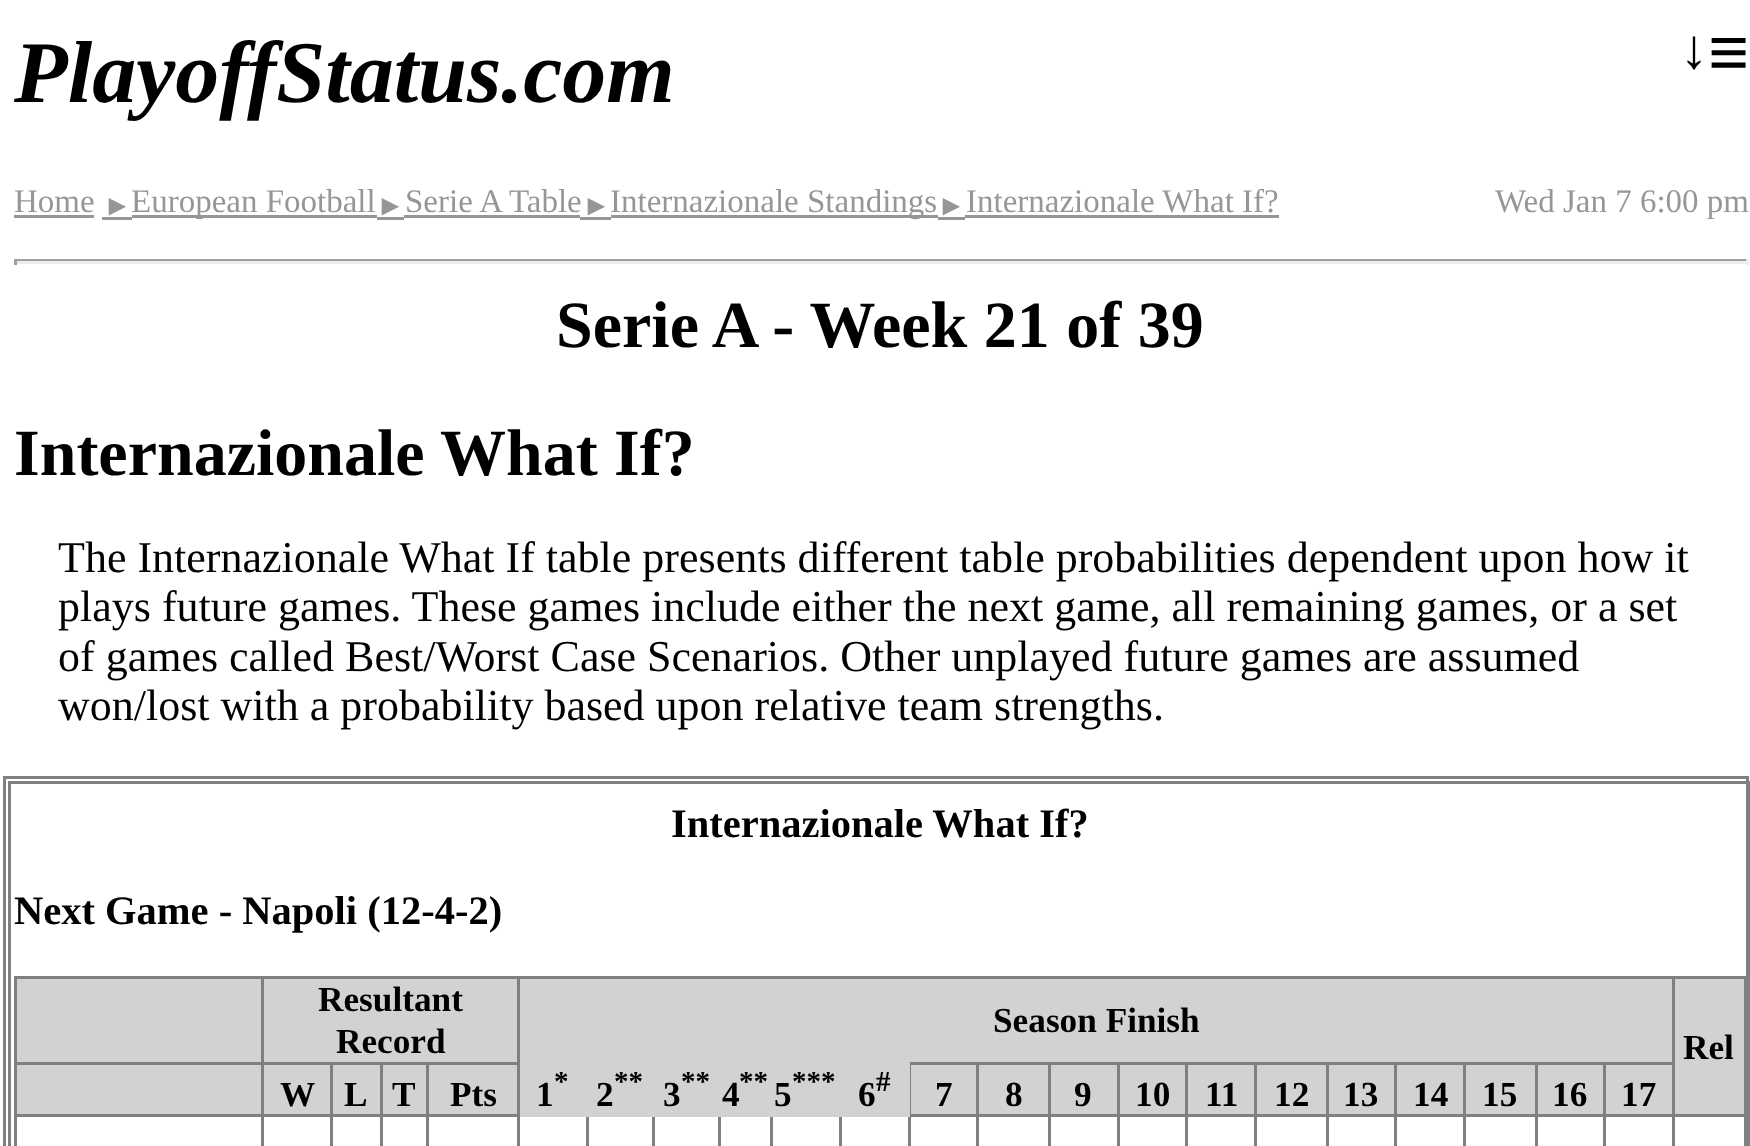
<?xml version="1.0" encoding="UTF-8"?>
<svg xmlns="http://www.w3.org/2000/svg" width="1750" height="1146">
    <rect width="100%" height="100%" fill="#FFFFFF"/>
    <text x="14" y="102" font-family="Liberation Serif" font-size="88" font-weight="700" font-style="italic" fill="#000000">PlayoffStatus.com</text>
    <text x="1680" y="68" font-family="Liberation Serif" font-size="56" font-weight="700" fill="#000000">↓</text>
    <text x="1708" y="77" font-family="Liberation Serif" font-size="73" font-weight="700" fill="#000000">≡</text>
    <text x="14" y="212" font-family="Liberation Serif" font-size="33" fill="#969696">Home</text>
    <rect x="14" y="215" width="80" height="3" fill="#969696"/>
    <text x="103" y="215" font-family="Liberation Serif" font-size="29" fill="#969696">►</text>
    <rect x="102" y="217" width="30" height="3" fill="#969696"/>
    <rect x="132" y="215" width="245" height="3" fill="#969696"/>
    <text x="131" y="212" font-family="Liberation Serif" font-size="33" fill="#969696">European Football</text>
    <text x="376" y="215" font-family="Liberation Serif" font-size="29" fill="#969696">►</text>
    <rect x="377" y="217" width="27" height="3" fill="#969696"/>
    <rect x="404" y="215" width="176" height="3" fill="#969696"/>
    <text x="405" y="212" font-family="Liberation Serif" font-size="33" fill="#969696">Serie A Table</text>
    <text x="582" y="215" font-family="Liberation Serif" font-size="29" fill="#969696">►</text>
    <rect x="580" y="217" width="31" height="3" fill="#969696"/>
    <rect x="611" y="215" width="327" height="3" fill="#969696"/>
    <text x="610" y="212" font-family="Liberation Serif" font-size="33" fill="#969696">Internazionale Standings</text>
    <text x="937" y="215" font-family="Liberation Serif" font-size="29" fill="#969696">►</text>
    <rect x="938" y="217" width="27" height="3" fill="#969696"/>
    <rect x="965" y="215" width="314" height="3" fill="#969696"/>
    <text x="966" y="212" font-family="Liberation Serif" font-size="33" fill="#969696">Internazionale What If?</text>
    <text x="1495" y="212" font-family="Liberation Serif" font-size="33" fill="#969696">Wed Jan 7 6:00 pm</text>
    <rect x="14" y="259" width="1735" height="2" fill="#9F9F9F"/>
    <rect x="1746" y="259" width="3" height="6" fill="#EEEEEE"/>
    <rect x="14" y="261" width="1735" height="3" fill="#EEEEEE"/>
    <rect x="14" y="259" width="3" height="6" fill="#9F9F9F"/>
    <text x="556" y="347" font-family="Liberation Serif" font-size="66" font-weight="700" fill="#000000">Serie A - Week 21 of 39</text>
    <text x="14" y="475" font-family="Liberation Serif" font-size="66" font-weight="700" fill="#000000">Internazionale What If?</text>
    <text font-family="Liberation Serif" font-size="44" fill="#000000">
        <tspan x="58" y="572">The Internazionale What If table presents different table probabilities dependent upon how it</tspan>
        <tspan x="58" y="621">plays future games. These games include either the next game, all remaining games, or a set</tspan>
        <tspan x="58" y="671">of games called Best/Worst Case Scenarios. Other unplayed future games are assumed</tspan>
        <tspan x="58" y="720">won/lost with a probability based upon relative team strengths.</tspan>
    </text>
    <rect x="4.5" y="777.5" width="1743" height="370" fill="none" stroke="#808080" stroke-width="3"/>
    <rect x="9.5" y="782.5" width="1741" height="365" fill="none" stroke="#808080" stroke-width="3"/>
    <text x="671" y="837" font-family="Liberation Serif" font-size="40.5" font-weight="700" fill="#000000">Internazionale What If?</text>
    <text x="14" y="924" font-family="Liberation Serif" font-size="40.5" font-weight="700" fill="#000000">Next Game - Napoli (12‑4‑2)</text>
    <rect x="14" y="976" width="1732" height="3" fill="#808080"/>
    <rect x="1744" y="976" width="2" height="170" fill="#808080"/>
    <rect x="14" y="976" width="3" height="170" fill="#808080"/>
    <rect x="17" y="979" width="244" height="83" fill="#D2D2D2"/>
    <rect x="264" y="979" width="253" height="83" fill="#D2D2D2"/>
    <rect x="517" y="1114" width="3" height="32" fill="#808080"/>
    <rect x="426" y="1114" width="94" height="3" fill="#808080"/>
    <rect x="517" y="1062" width="3" height="55" fill="#808080"/>
    <rect x="426" y="1062" width="94" height="3" fill="#808080"/>
    <rect x="426" y="1114" width="3" height="32" fill="#808080"/>
    <rect x="380" y="1114" width="49" height="3" fill="#808080"/>
    <rect x="426" y="1062" width="3" height="55" fill="#808080"/>
    <rect x="380" y="1062" width="49" height="3" fill="#808080"/>
    <rect x="380" y="1114" width="3" height="32" fill="#808080"/>
    <rect x="330" y="1114" width="52" height="3" fill="#808080"/>
    <rect x="380" y="1062" width="3" height="55" fill="#808080"/>
    <rect x="330" y="1062" width="52" height="3" fill="#808080"/>
    <rect x="330" y="1114" width="3" height="32" fill="#808080"/>
    <rect x="261" y="1114" width="72" height="3" fill="#808080"/>
    <rect x="330" y="1062" width="3" height="55" fill="#808080"/>
    <rect x="261" y="1062" width="72" height="3" fill="#808080"/>
    <rect x="261" y="1114" width="3" height="32" fill="#808080"/>
    <rect x="14" y="1114" width="250" height="3" fill="#808080"/>
    <rect x="261" y="1062" width="3" height="55" fill="#808080"/>
    <rect x="14" y="1062" width="250" height="3" fill="#808080"/>
    <rect x="261" y="976" width="3" height="88" fill="#808080"/>
    <text x="318" y="1011" font-family="Liberation Serif" font-size="35.25" font-weight="700" fill="#000000">Resultant</text>
    <text x="336" y="1053" font-family="Liberation Serif" font-size="35.25" font-weight="700" fill="#000000">Record</text>
    <rect x="520" y="979" width="1152" height="83" fill="#D2D2D2"/>
    <rect x="517" y="976" width="3" height="88" fill="#808080"/>
    <text x="993" y="1032" font-family="Liberation Serif" font-size="35.25" font-weight="700" fill="#000000">Season Finish</text>
    <rect x="1675" y="979" width="69" height="135" fill="#D2D2D2"/>
    <rect x="1603" y="1062" width="72" height="3" fill="#808080"/>
    <rect x="1672" y="1114" width="74" height="3" fill="#808080"/>
    <rect x="1672" y="1114" width="3" height="32" fill="#808080"/>
    <rect x="1603" y="1114" width="72" height="3" fill="#808080"/>
    <rect x="1672" y="976" width="3" height="141" fill="#808080"/>
    <text x="1683" y="1059" font-family="Liberation Serif" font-size="35.25" font-weight="700" fill="#000000">Rel</text>
    <rect x="17" y="1065" width="244" height="49" fill="#D2D2D2"/>
    <rect x="264" y="1065" width="66" height="49" fill="#D2D2D2"/>
    <text x="280" y="1106" font-family="Liberation Serif" font-size="35.25" font-weight="700" fill="#000000">W</text>
    <rect x="333" y="1065" width="47" height="49" fill="#D2D2D2"/>
    <text x="344" y="1106" font-family="Liberation Serif" font-size="35.25" font-weight="700" fill="#000000">L</text>
    <rect x="383" y="1065" width="43" height="49" fill="#D2D2D2"/>
    <text x="392" y="1106" font-family="Liberation Serif" font-size="35.25" font-weight="700" fill="#000000">T</text>
    <rect x="429" y="1065" width="88" height="49" fill="#D2D2D2"/>
    <text x="450" y="1106" font-family="Liberation Serif" font-size="35.25" font-weight="700" fill="#000000">Pts</text>
    <rect x="1603" y="1114" width="3" height="32" fill="#808080"/>
    <rect x="1535" y="1114" width="71" height="3" fill="#808080"/>
    <rect x="1603" y="1062" width="3" height="55" fill="#808080"/>
    <rect x="1535" y="1062" width="71" height="3" fill="#808080"/>
    <rect x="1535" y="1114" width="3" height="32" fill="#808080"/>
    <rect x="1463" y="1114" width="74" height="3" fill="#808080"/>
    <rect x="1535" y="1062" width="3" height="55" fill="#808080"/>
    <rect x="1463" y="1062" width="74" height="3" fill="#808080"/>
    <rect x="1463" y="1114" width="3" height="32" fill="#808080"/>
    <rect x="1394" y="1114" width="72" height="3" fill="#808080"/>
    <rect x="1463" y="1062" width="3" height="55" fill="#808080"/>
    <rect x="1394" y="1062" width="72" height="3" fill="#808080"/>
    <rect x="1394" y="1114" width="3" height="32" fill="#808080"/>
    <rect x="1326" y="1114" width="71" height="3" fill="#808080"/>
    <rect x="1394" y="1062" width="3" height="55" fill="#808080"/>
    <rect x="1326" y="1062" width="71" height="3" fill="#808080"/>
    <rect x="1326" y="1114" width="3" height="32" fill="#808080"/>
    <rect x="1254" y="1114" width="74" height="3" fill="#808080"/>
    <rect x="1326" y="1062" width="3" height="55" fill="#808080"/>
    <rect x="1254" y="1062" width="74" height="3" fill="#808080"/>
    <rect x="1254" y="1114" width="3" height="32" fill="#808080"/>
    <rect x="1185" y="1114" width="72" height="3" fill="#808080"/>
    <rect x="1254" y="1062" width="3" height="55" fill="#808080"/>
    <rect x="1185" y="1062" width="72" height="3" fill="#808080"/>
    <rect x="1185" y="1114" width="3" height="32" fill="#808080"/>
    <rect x="1117" y="1114" width="71" height="3" fill="#808080"/>
    <rect x="1185" y="1062" width="3" height="55" fill="#808080"/>
    <rect x="1117" y="1062" width="71" height="3" fill="#808080"/>
    <rect x="1117" y="1114" width="3" height="32" fill="#808080"/>
    <rect x="1048" y="1114" width="71" height="3" fill="#808080"/>
    <rect x="1117" y="1062" width="3" height="55" fill="#808080"/>
    <rect x="1048" y="1062" width="71" height="3" fill="#808080"/>
    <rect x="1048" y="1114" width="3" height="32" fill="#808080"/>
    <rect x="976" y="1114" width="75" height="3" fill="#808080"/>
    <rect x="1048" y="1062" width="3" height="55" fill="#808080"/>
    <rect x="976" y="1062" width="75" height="3" fill="#808080"/>
    <rect x="976" y="1114" width="3" height="32" fill="#808080"/>
    <rect x="908" y="1114" width="71" height="3" fill="#808080"/>
    <rect x="976" y="1062" width="3" height="55" fill="#808080"/>
    <rect x="908" y="1062" width="71" height="3" fill="#808080"/>
    <rect x="586" y="1114" width="3" height="32" fill="#808080"/>
    <rect x="652" y="1114" width="3" height="32" fill="#808080"/>
    <rect x="718" y="1114" width="3" height="32" fill="#808080"/>
    <rect x="770" y="1114" width="3" height="32" fill="#808080"/>
    <rect x="839" y="1114" width="3" height="32" fill="#808080"/>
    <rect x="908" y="1114" width="3" height="32" fill="#808080"/>
    <rect x="520" y="1062" width="390" height="55" fill="#D2D2D2"/>
    <text x="554" y="1091" font-family="Liberation Serif" font-size="29" font-weight="700" fill="#000000">*</text>
    <text x="536" y="1106" font-family="Liberation Serif" font-size="35.25" font-weight="700" fill="#000000">1</text>
    <text x="614" y="1091" font-family="Liberation Serif" font-size="29" font-weight="700" fill="#000000">**</text>
    <text x="596" y="1106" font-family="Liberation Serif" font-size="35.25" font-weight="700" fill="#000000">2</text>
    <text x="681" y="1091" font-family="Liberation Serif" font-size="29" font-weight="700" fill="#000000">**</text>
    <text x="663" y="1106" font-family="Liberation Serif" font-size="35.25" font-weight="700" fill="#000000">3</text>
    <text x="739" y="1091" font-family="Liberation Serif" font-size="29" font-weight="700" fill="#000000">**</text>
    <text x="722" y="1106" font-family="Liberation Serif" font-size="35.25" font-weight="700" fill="#000000">4</text>
    <text x="792" y="1091" font-family="Liberation Serif" font-size="29" font-weight="700" fill="#000000">***</text>
    <text x="774" y="1106" font-family="Liberation Serif" font-size="35.25" font-weight="700" fill="#000000">5</text>
    <text x="858" y="1106" font-family="Liberation Serif" font-size="35.25" font-weight="700" fill="#000000">6</text>
    <text x="876" y="1091" font-family="Liberation Serif" font-size="29" font-weight="700" fill="#000000">#</text>
    <rect x="911" y="1065" width="65" height="49" fill="#D2D2D2"/>
    <rect x="910" y="1062" width="1" height="55" fill="#808080"/>
    <text x="935" y="1106" font-family="Liberation Serif" font-size="35.25" font-weight="700" fill="#000000">7</text>
    <rect x="979" y="1065" width="69" height="49" fill="#D2D2D2"/>
    <text x="1005" y="1106" font-family="Liberation Serif" font-size="35.25" font-weight="700" fill="#000000">8</text>
    <rect x="1051" y="1065" width="66" height="49" fill="#D2D2D2"/>
    <text x="1074" y="1106" font-family="Liberation Serif" font-size="35.25" font-weight="700" fill="#000000">9</text>
    <rect x="1120" y="1065" width="65" height="49" fill="#D2D2D2"/>
    <text x="1135" y="1106" font-family="Liberation Serif" font-size="35.25" font-weight="700" fill="#000000">10</text>
    <rect x="1188" y="1065" width="66" height="49" fill="#D2D2D2"/>
    <text x="1205" y="1106" font-family="Liberation Serif" font-size="35.25" font-weight="700" fill="#000000">11</text>
    <rect x="1257" y="1065" width="69" height="49" fill="#D2D2D2"/>
    <text x="1274" y="1106" font-family="Liberation Serif" font-size="35.25" font-weight="700" fill="#000000">12</text>
    <rect x="1329" y="1065" width="65" height="49" fill="#D2D2D2"/>
    <text x="1343" y="1106" font-family="Liberation Serif" font-size="35.25" font-weight="700" fill="#000000">13</text>
    <rect x="1397" y="1065" width="66" height="49" fill="#D2D2D2"/>
    <text x="1413" y="1106" font-family="Liberation Serif" font-size="35.25" font-weight="700" fill="#000000">14</text>
    <rect x="1466" y="1065" width="69" height="49" fill="#D2D2D2"/>
    <text x="1482" y="1106" font-family="Liberation Serif" font-size="35.25" font-weight="700" fill="#000000">15</text>
    <rect x="1538" y="1065" width="65" height="49" fill="#D2D2D2"/>
    <text x="1552" y="1106" font-family="Liberation Serif" font-size="35.25" font-weight="700" fill="#000000">16</text>
    <rect x="1606" y="1065" width="66" height="49" fill="#D2D2D2"/>
    <text x="1621" y="1106" font-family="Liberation Serif" font-size="35.25" font-weight="700" fill="#000000">17</text>
</svg>
